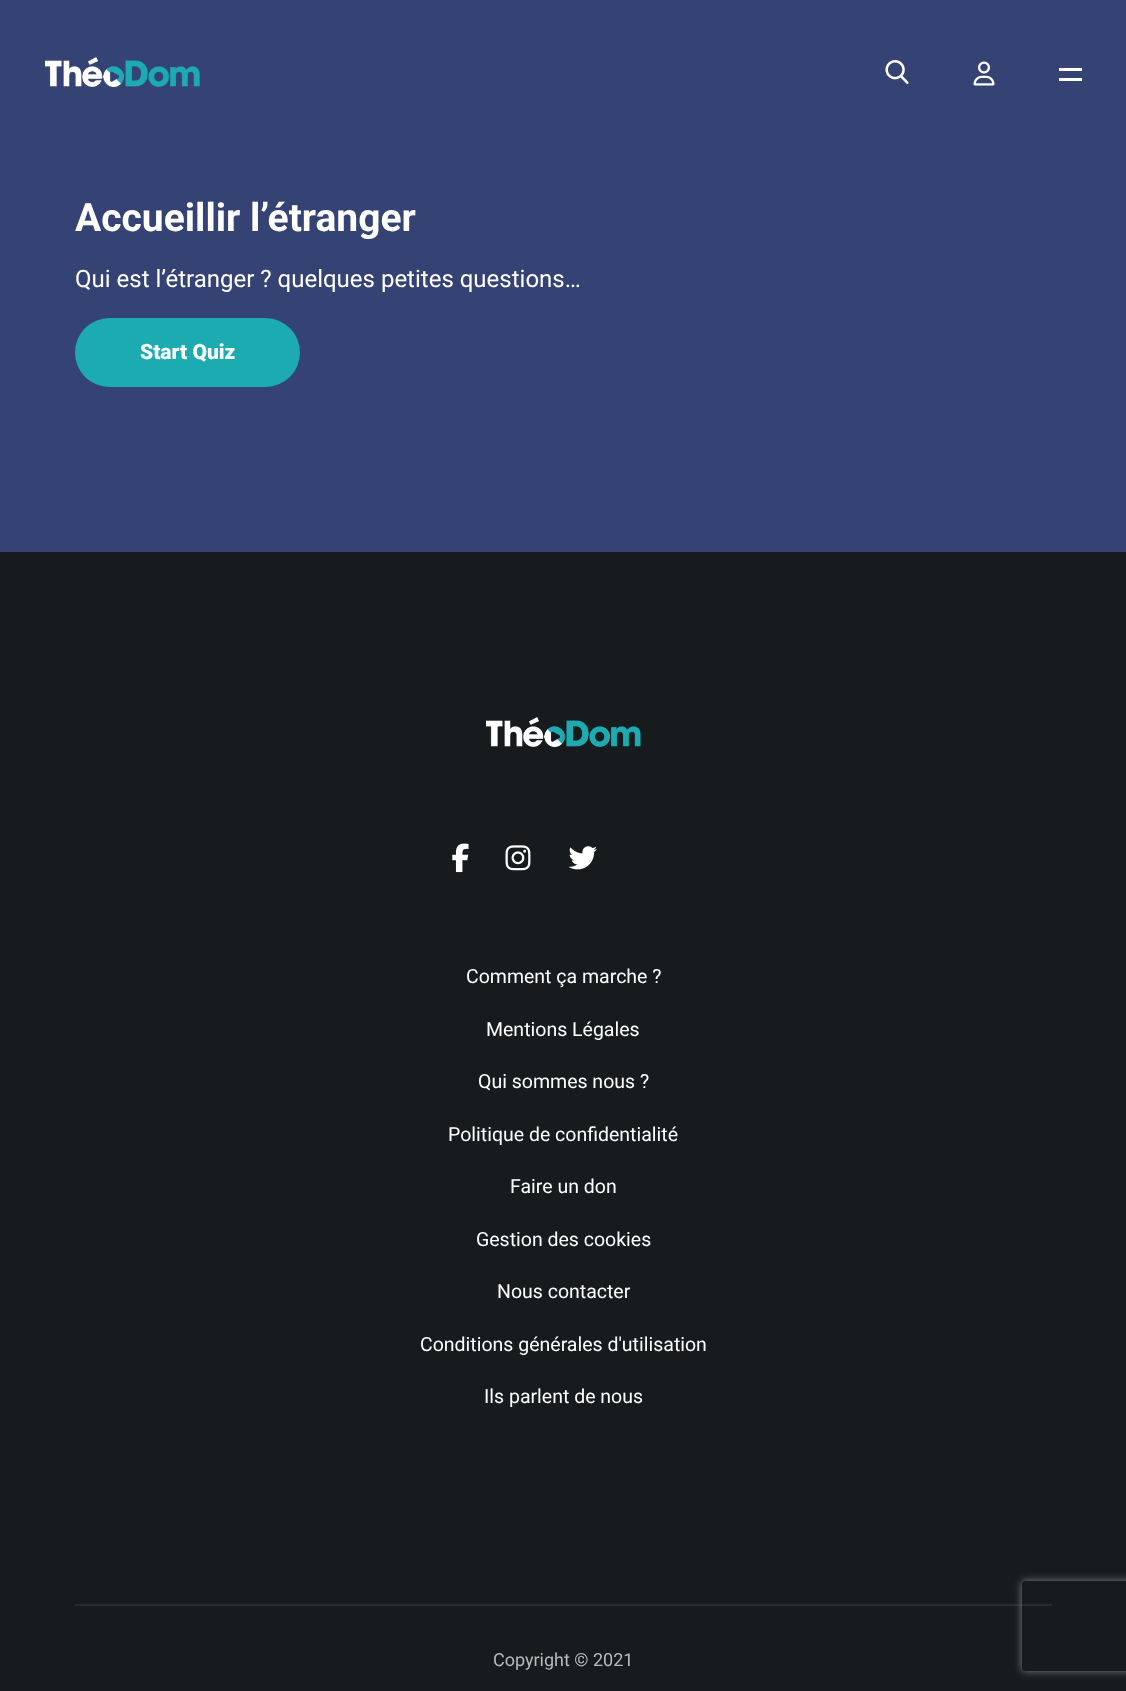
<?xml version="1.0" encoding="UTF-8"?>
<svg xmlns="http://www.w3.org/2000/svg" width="1126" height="1691">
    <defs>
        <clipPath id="clip1"><path d="M 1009 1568 H 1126 V 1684 H 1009 Z M 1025 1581 H 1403 C 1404.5 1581 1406 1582.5 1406 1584 V 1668 C 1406 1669.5 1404.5 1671 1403 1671 H 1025 C 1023.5 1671 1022 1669.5 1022 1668 V 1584 C 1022 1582.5 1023.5 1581 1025 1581 Z" clip-rule="evenodd"/></clipPath>
        <filter id="blur1" x="-50%" y="-200%" width="200%" height="500%"><feGaussianBlur stdDeviation="4"/></filter>
    </defs>
    <rect width="100%" height="100%" fill="#354374"/>
    <image x="45" y="57" width="155" height="30" href="img_01.png"/>
    <image x="885" y="60" width="24" height="24" href="img_02.png"/>
    <image x="973" y="61" width="22" height="25" href="img_03.png"/>
    <rect x="1059" y="68" width="23" height="3" fill="#FFFFFF"/>
    <rect x="1059" y="78" width="23" height="3" fill="#FFFFFF"/>
    <text x="75" y="231" font-family="Roboto" font-size="39" font-weight="700" fill="#FFFFFF">Accueillir l’étranger</text>
    <text x="75" y="287" font-family="Roboto" font-size="24" fill="#FFFFFF">Qui est l’étranger ? quelques petites questions…</text>
    <rect x="75" y="318" width="225" height="69" rx="34.5" fill="#1DABB2"/>
    <text x="140" y="359" font-family="Roboto" font-size="21" font-weight="900" fill="#FFFFFF">Start Quiz</text>
    <rect x="0" y="552" width="1126" height="1139" fill="#171B1D"/>
    <image x="486" y="717" width="155" height="30" href="img_04.png"/>
    <image x="452" y="843" width="17" height="30" href="img_05.png"/>
    <image x="505" y="845" width="26" height="26" href="img_06.png"/>
    <image x="568" y="846" width="29" height="24" href="img_07.png"/>
    <text x="466" y="983" font-family="Roboto" font-size="19.5" fill="#FFFFFF">Comment ça marche ?</text>
    <text x="486" y="1036" font-family="Roboto" font-size="19.5" fill="#FFFFFF">Mentions Légales</text>
    <text x="478" y="1088" font-family="Roboto" font-size="19.5" fill="#FFFFFF">Qui sommes nous ?</text>
    <text x="448" y="1141" font-family="Roboto" font-size="19.5" fill="#FFFFFF">Politique de confidentialité</text>
    <text x="510" y="1193" font-family="Roboto" font-size="19.5" fill="#FFFFFF">Faire un don</text>
    <text x="476" y="1246" font-family="Roboto" font-size="19.5" fill="#FFFFFF">Gestion des cookies</text>
    <text x="497" y="1298" font-family="Roboto" font-size="19.5" fill="#FFFFFF">Nous contacter</text>
    <text x="420" y="1351" font-family="Roboto" font-size="19.5" fill="#FFFFFF">Conditions générales d'utilisation</text>
    <text x="484" y="1403" font-family="Roboto" font-size="19.5" fill="#FFFFFF">Ils parlent de nous</text>
    <rect x="75" y="1604" width="977" height="2" fill="#262D2F"/>
    <text x="493" y="1666" font-family="Roboto" font-size="18" fill="#B9BBBB">Copyright © 2021</text>
    <g clip-path="url(#clip1)">
        <rect x="1022" y="1581" width="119" height="90" rx="3" fill="#808080" filter="url(#blur1)"/>
    </g>
</svg>
